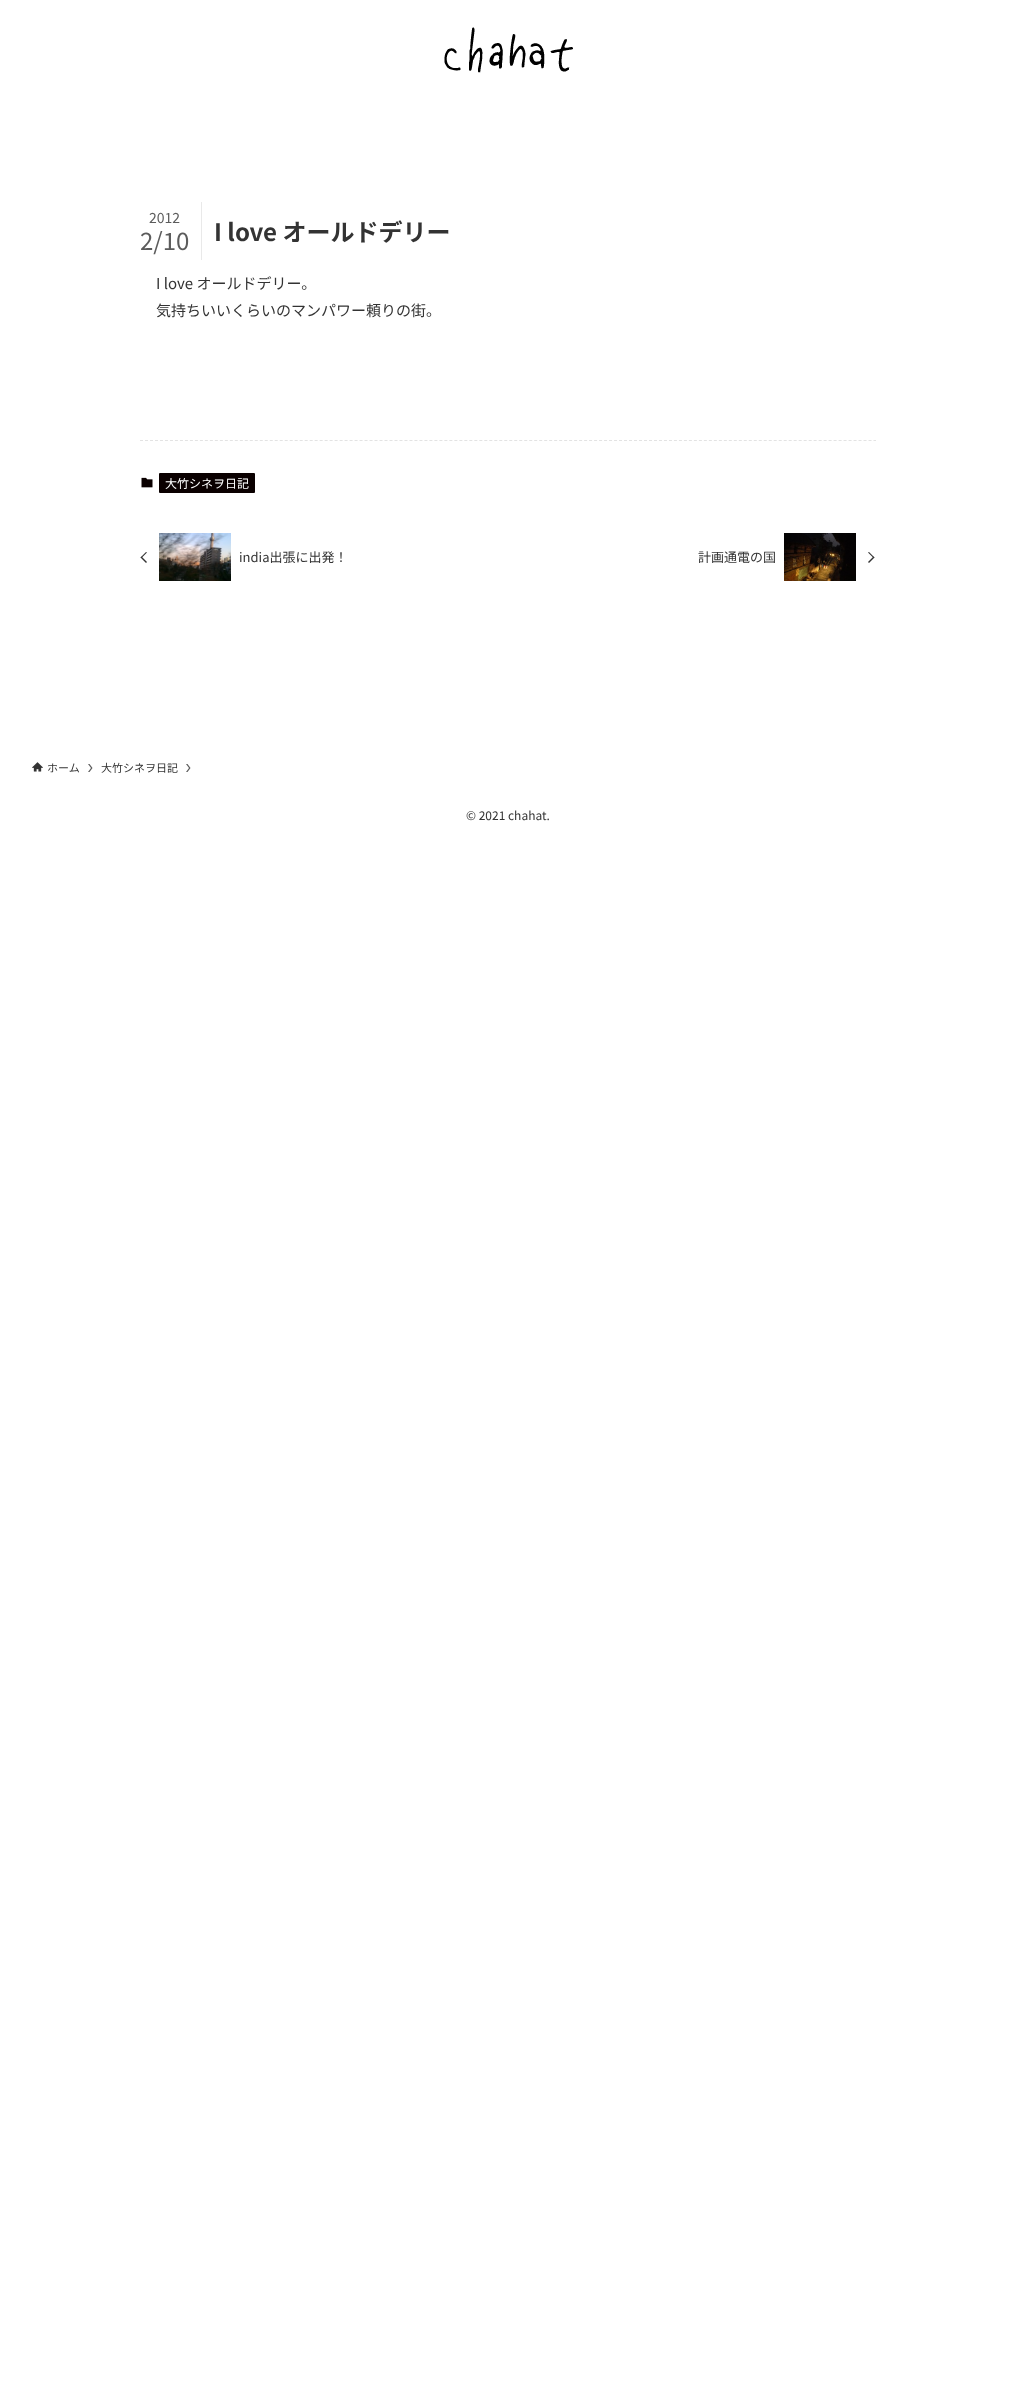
<?xml version="1.0" encoding="UTF-8"?>
<svg xmlns="http://www.w3.org/2000/svg" width="1015" height="2394">
    <rect width="100%" height="100%" fill="#FFFFFF"/>
    <image x="444" y="27" width="129" height="46" href="img_01.png"/>
    <rect x="201" y="202" width="1" height="58" fill="#E9E9E9"/>
    <text x="149" y="223" font-family="Noto Sans JP" font-size="14" fill="#5C5C5C">2012</text>
    <text x="140" y="250" font-family="Noto Sans JP" font-size="24" fill="#5C5C5C">2/10</text>
    <text x="214" y="241" font-family="Noto Sans JP" font-size="24" font-weight="700" fill="#333333">I love オールドデリー</text>
    <text font-family="Noto Sans JP" font-size="15" fill="#333333">
        <tspan x="156" y="289">I love オールドデリー。</tspan>
        <tspan x="156" y="316">気持ちいいくらいのマンパワー頼りの街。</tspan>
    </text>
    <path d="M 140 440.5 H 876" fill="none" stroke="#E3E3E3" stroke-dasharray="3 1.99"/>
    <image x="141" y="477" width="12" height="11" href="img_02.png"/>
    <rect x="159" y="473" width="96" height="20" rx="1" fill="#0A0000"/>
    <text x="165" y="488" font-family="Noto Sans JP" font-size="12" fill="#FFFFFF">大竹シネヲ日記</text>
    <path d="M 141.5 556.5 L 147 562 L 146 563 L 140.5 557.5 Z" fill="#333333"/>
    <path d="M 146 552 L 147 552.5 L 141.5 558 L 140.5 557.5 Z" fill="#333333"/>
    <image x="159" y="533" width="72" height="48" href="img_03.png"/>
    <text x="239" y="562" font-family="Noto Sans JP" font-size="13" fill="#333333">india出張に出発！</text>
    <text x="698" y="562" font-family="Noto Sans JP" font-size="13" fill="#333333">計画通電の国</text>
    <image x="784" y="533" width="72" height="48" href="img_04.png"/>
    <path d="M 868 552.5 L 869 552 L 874.5 557.5 L 873.5 558 Z" fill="#333333"/>
    <path d="M 868 562 L 873.5 556.5 L 874.5 557.5 L 869 563 Z" fill="#333333"/>
    <image x="32" y="762" width="11" height="10" href="img_05.png"/>
    <text x="47" y="772" font-family="Noto Sans JP" font-size="11" fill="#333333">ホーム</text>
    <path d="M 89.5 764 H 88 L 91 768 L 88 772 H 89.5 L 92.5 768 Z" fill="#5C5C5C"/>
    <text x="101" y="772" font-family="Noto Sans JP" font-size="11" fill="#333333">大竹シネヲ日記</text>
    <path d="M 187.5 764 H 186 L 189 768 L 186 772 H 187.5 L 190.5 768 Z" fill="#5C5C5C"/>
    <text x="466" y="820" font-family="Noto Sans JP" font-size="12" fill="#333333">© 2021 chahat.</text>
</svg>
